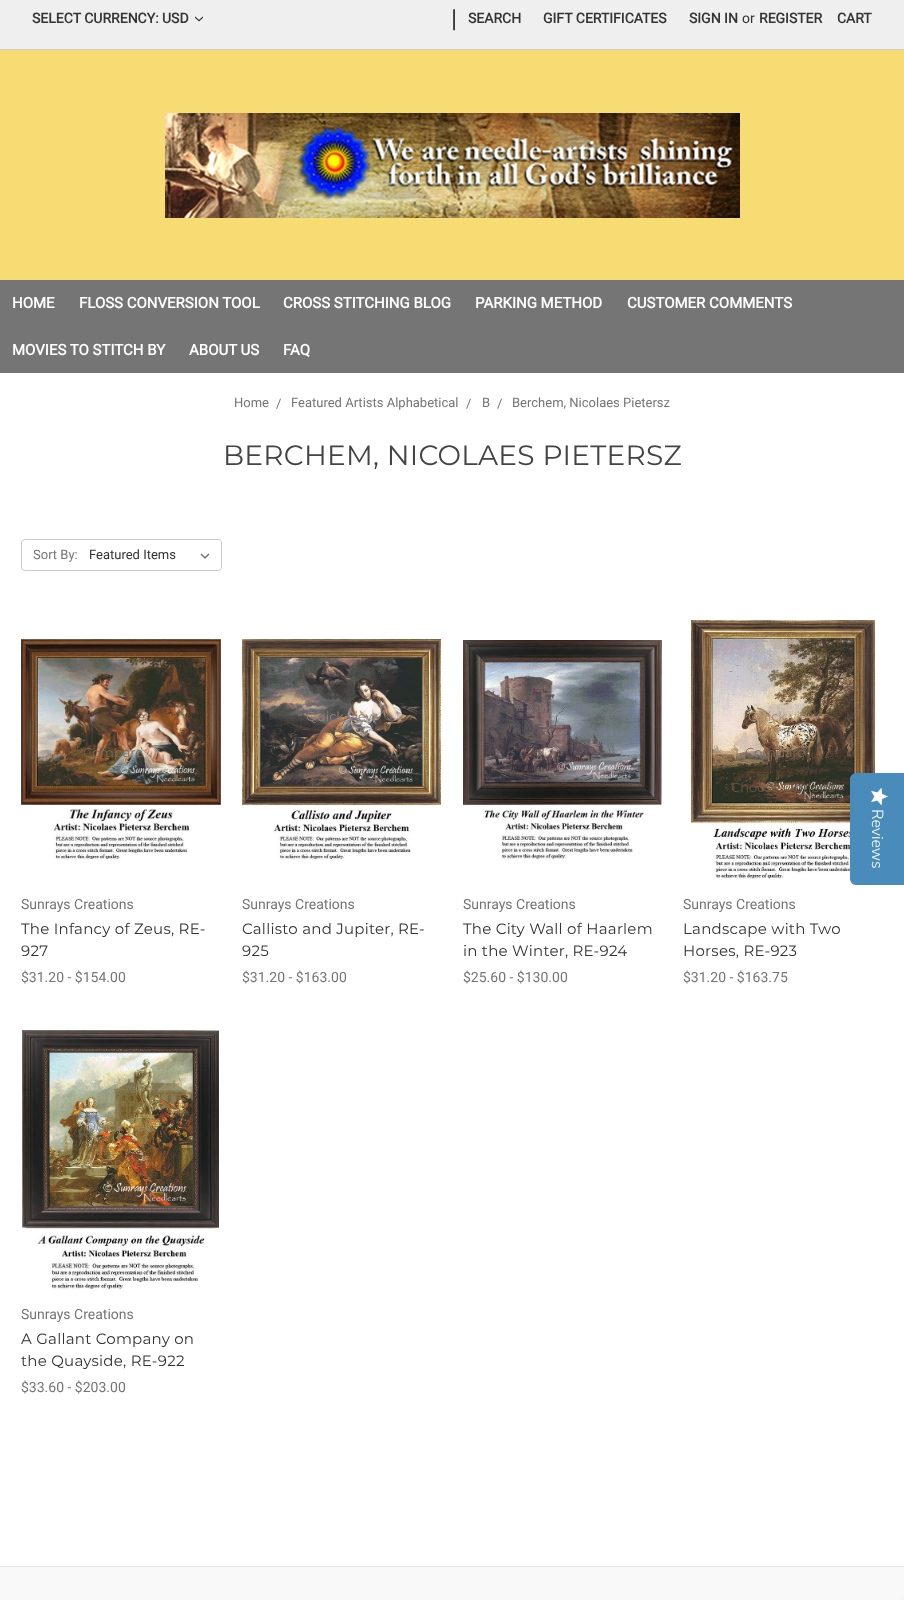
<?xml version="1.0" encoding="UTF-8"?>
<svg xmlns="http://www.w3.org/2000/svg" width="904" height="1600">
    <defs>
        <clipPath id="clip1"><rect x="22" y="540" width="199" height="30" rx="3"/></clipPath>
    </defs>
    <rect width="100%" height="100%" fill="#FFFFFF"/>
    <rect x="0" y="50" width="904" height="230" fill="#F7DB73"/>
    <rect x="0" y="0" width="904" height="49" fill="#EFEFEF"/>
    <rect x="0" y="49" width="904" height="1" fill="#CCCCCC"/>
    <text x="32" y="23" font-family="Roboto" font-size="14" font-weight="700" fill="#333333">SELECT CURRENCY: USD</text>
    <image x="195" y="16" width="8" height="6" href="img_01.png"/>
    <text x="451" y="27" font-family="Roboto" font-size="25" fill="#333333">|</text>
    <text x="468" y="23" font-family="Roboto" font-size="14" font-weight="700" fill="#333333">SEARCH</text>
    <text x="543" y="23" font-family="Roboto" font-size="14" font-weight="700" fill="#333333">GIFT CERTIFICATES</text>
    <text x="689" y="23" font-family="Roboto" font-size="14" font-weight="700" fill="#333333">SIGN IN</text>
    <text x="742" y="23" font-family="Roboto" font-size="14" fill="#333333">or</text>
    <text x="759" y="23" font-family="Roboto" font-size="14" font-weight="700" fill="#333333">REGISTER</text>
    <text x="837" y="23" font-family="Roboto" font-size="14" font-weight="700" fill="#333333">CART</text>
    <image x="165" y="113" width="575" height="105" href="img_02.png"/>
    <rect x="0" y="280" width="904" height="93" fill="#757575"/>
    <text x="12" y="308" font-family="Roboto" font-size="15" font-weight="700" fill="#FFFFFF">HOME</text>
    <text x="79" y="308" font-family="Roboto" font-size="15" font-weight="700" fill="#FFFFFF">FLOSS CONVERSION TOOL</text>
    <text x="283" y="308" font-family="Roboto" font-size="15" font-weight="700" fill="#FFFFFF">CROSS STITCHING BLOG</text>
    <text x="475" y="308" font-family="Roboto" font-size="15" font-weight="700" fill="#FFFFFF">PARKING METHOD</text>
    <text x="627" y="308" font-family="Roboto" font-size="15" font-weight="700" fill="#FFFFFF">CUSTOMER COMMENTS</text>
    <text x="12" y="355" font-family="Roboto" font-size="15" font-weight="700" fill="#FFFFFF">MOVIES TO STITCH BY</text>
    <text x="189" y="355" font-family="Roboto" font-size="15" font-weight="700" fill="#FFFFFF">ABOUT US</text>
    <text x="283" y="355" font-family="Roboto" font-size="15" font-weight="700" fill="#FFFFFF">FAQ</text>
    <text x="234" y="407" font-family="Roboto" font-size="13" fill="#757575">Home</text>
    <text x="276" y="408" font-family="Roboto" font-size="13" fill="#757575">/</text>
    <text x="291" y="407" font-family="Roboto" font-size="13" fill="#757575">Featured Artists Alphabetical</text>
    <text x="466" y="408" font-family="Roboto" font-size="13" fill="#757575">/</text>
    <text x="482" y="407" font-family="Roboto" font-size="13" fill="#757575">B</text>
    <text x="497" y="408" font-family="Roboto" font-size="13" fill="#757575">/</text>
    <text x="512" y="407" font-family="Roboto" font-size="13" fill="#757575">Berchem, Nicolaes Pietersz</text>
    <text x="223" y="465" font-family="Montserrat" font-size="28" font-weight="100" letter-spacing="0.25" fill="#444444">BERCHEM, NICOLAES PIETERSZ</text>
    <rect x="21.5" y="539.5" width="200" height="31" rx="3.5" fill="none" stroke="#CCCCCC"/>
    <text x="33" y="559" font-family="Roboto" font-size="13" fill="#757575">Sort By:</text>
    <g clip-path="url(#clip1)">
        <rect x="86" y="540" width="135" height="30" rx="4" fill="#FFFFFF"/>
    </g>
    <image x="200" y="553" width="10" height="6" href="img_03.png"/>
    <text x="89" y="559" font-family="Roboto" font-size="13" fill="#333333">Featured Items</text>
    <image x="21" y="639" width="200" height="221" href="img_04.png"/>
    <text x="137" y="721" font-family="Montserrat" font-size="13" font-weight="100" fill="#6F5640">e</text>
    <text x="83" y="757" font-family="Montserrat" font-size="13" font-weight="100" fill="#7E6A53">Compare</text>
    <text x="21" y="909" font-family="Roboto" font-size="14" fill="#757575">Sunrays Creations</text>
    <text font-family="Montserrat" font-size="15" font-weight="100" letter-spacing="0.25" fill="#333333">
        <tspan x="21" y="934">The Infancy of Zeus, RE-</tspan>
        <tspan x="21" y="956">927</tspan>
    </text>
    <text x="21" y="982" font-family="Roboto" font-size="14" fill="#757575">$31.20 - $154.00</text>
    <image x="242" y="639" width="199" height="221" href="img_05.png"/>
    <text x="306" y="721" font-family="Montserrat" font-size="13" font-weight="100" fill="#8E8279">Quick view</text>
    <text x="242" y="909" font-family="Roboto" font-size="14" fill="#757575">Sunrays Creations</text>
    <text font-family="Montserrat" font-size="15" font-weight="100" letter-spacing="0.25" fill="#333333">
        <tspan x="242" y="934">Callisto and Jupiter, RE-</tspan>
        <tspan x="242" y="956">925</tspan>
    </text>
    <text x="242" y="982" font-family="Roboto" font-size="14" fill="#757575">$31.20 - $163.00</text>
    <image x="463" y="640" width="199" height="220" href="img_06.png"/>
    <text x="463" y="909" font-family="Roboto" font-size="14" fill="#757575">Sunrays Creations</text>
    <text font-family="Montserrat" font-size="15" font-weight="100" letter-spacing="0.25" fill="#333333">
        <tspan x="463" y="934">The City Wall of Haarlem</tspan>
        <tspan x="463" y="956">in the Winter, RE-924</tspan>
    </text>
    <text x="463" y="982" font-family="Roboto" font-size="14" fill="#757575">$25.60 - $130.00</text>
    <image x="691" y="620" width="184" height="260" href="img_07.png"/>
    <text x="748" y="721" font-family="Montserrat" font-size="13" font-weight="100" fill="#A78E72">Quick view</text>
    <text x="745" y="757" font-family="Montserrat" font-size="13" font-weight="100" fill="#7F6B59">Compare</text>
    <text x="731" y="792" font-family="Montserrat" font-size="13" font-weight="100" fill="#655848">Choose Options</text>
    <text x="683" y="909" font-family="Roboto" font-size="14" fill="#757575">Sunrays Creations</text>
    <text font-family="Montserrat" font-size="15" font-weight="100" letter-spacing="0.25" fill="#333333">
        <tspan x="683" y="934">Landscape with Two</tspan>
        <tspan x="683" y="956">Horses, RE-923</tspan>
    </text>
    <text x="683" y="982" font-family="Roboto" font-size="14" fill="#757575">$31.20 - $163.75</text>
    <image x="22" y="1030" width="197" height="260" href="img_08.png"/>
    <text x="85" y="1131" font-family="Montserrat" font-size="13" font-weight="100" fill="#9B8A63">Quick view</text>
    <text x="83" y="1167" font-family="Montserrat" font-size="13" font-weight="100" fill="#966A3A">Compare</text>
    <text x="21" y="1319" font-family="Roboto" font-size="14" fill="#757575">Sunrays Creations</text>
    <text font-family="Montserrat" font-size="15" font-weight="100" letter-spacing="0.25" fill="#333333">
        <tspan x="21" y="1344">A Gallant Company on</tspan>
        <tspan x="21" y="1366">the Quayside, RE-922</tspan>
    </text>
    <text x="21" y="1392" font-family="Roboto" font-size="14" fill="#757575">$33.60 - $203.00</text>
    <path d="M 904 773 V 885 H 856 C 853 885 850 882 850 879 V 779 C 850 776 853 773 856 773 Z" fill="#498CBC"/>
    <image x="871" y="787" width="17" height="19" href="img_09.png"/>
    <text x="872" y="809" transform="rotate(90 872 809)" font-family="Nunito Sans" font-size="16" font-weight="300" fill="#FFFFFF">Reviews</text>
    <rect x="0" y="1567" width="904" height="33" fill="#F9F9F9"/>
    <rect x="0" y="1566" width="904" height="1" fill="#E5E5E5"/>
    <rect x="902" y="1598" width="2" height="2" fill="#F5F5F5"/>
</svg>
